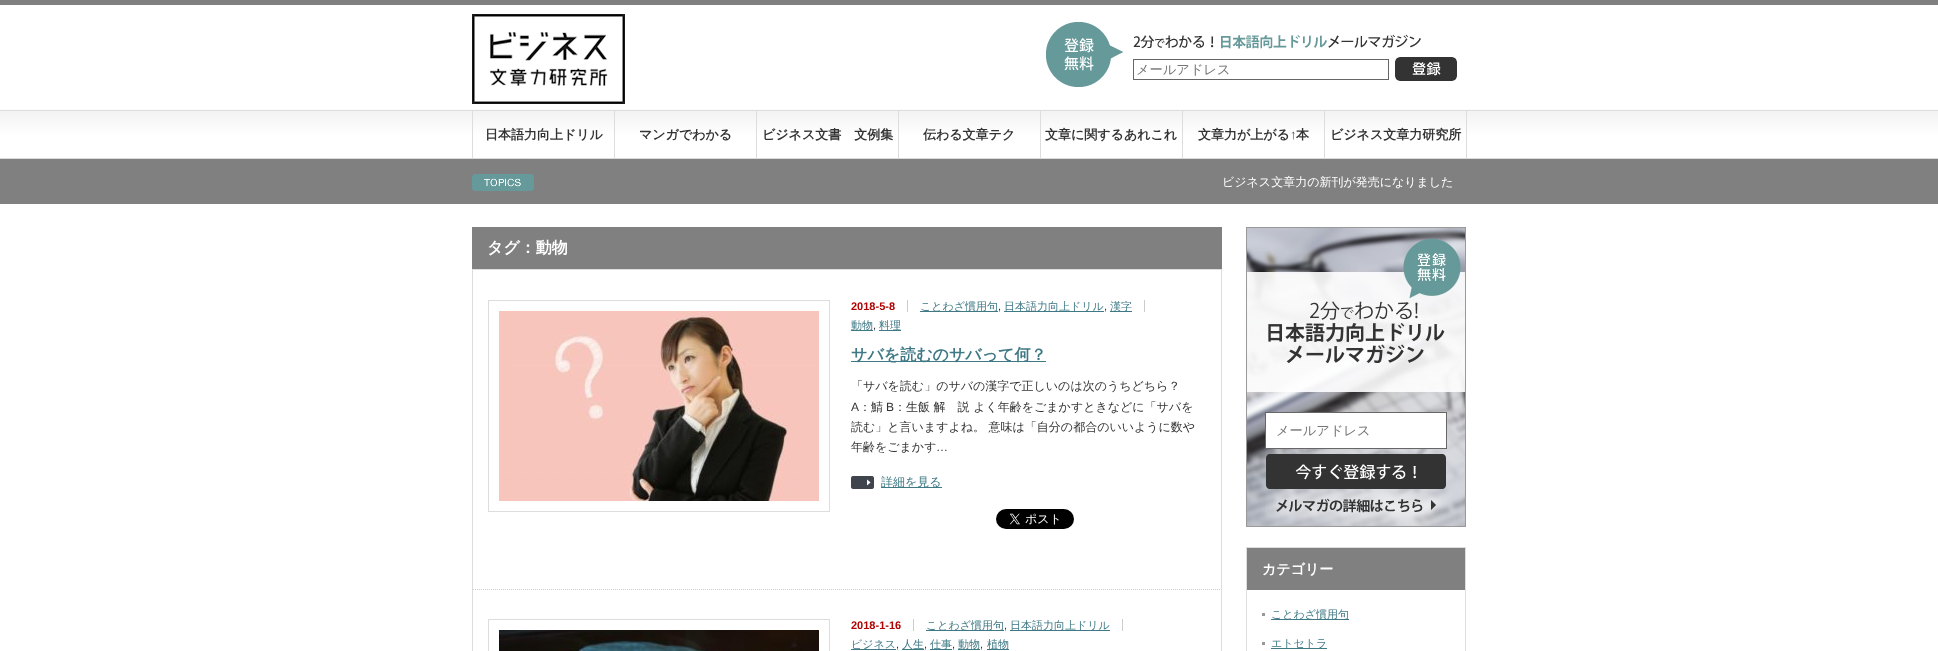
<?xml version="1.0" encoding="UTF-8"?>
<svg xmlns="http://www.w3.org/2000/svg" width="1938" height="651">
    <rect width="100%" height="100%" fill="#FFFFFF"/>
    <image x="0" y="0" width="1938" height="204" href="img_01.png"/>
    <image x="472" y="14" width="153" height="90" href="img_02.png"/>
    <image x="1046" y="22" width="375" height="65" href="img_03.png"/>
    <rect x="1133.5" y="59.5" width="255" height="20" fill="none" stroke="#666666"/>
    <text x="1136" y="74" font-family="WenQuanYi Zen Hei" font-size="13.25" font-weight="500" fill="#757575">メールアドレス</text>
    <image x="1395" y="57" width="62" height="24" href="img_04.png"/>
    <rect x="1466" y="111" width="1" height="47" fill="#DDDDDD"/>
    <rect x="472" y="111" width="1" height="47" fill="#DDDDDD"/>
    <text x="485" y="139" font-family="WenQuanYi Zen Hei" font-size="13" font-weight="700" fill="#333333">日本語力向上ドリル</text>
    <rect x="614" y="111" width="1" height="47" fill="#DDDDDD"/>
    <text x="639" y="139" font-family="WenQuanYi Zen Hei" font-size="13" font-weight="700" fill="#333333">マンガでわかる</text>
    <rect x="756" y="111" width="1" height="47" fill="#DDDDDD"/>
    <text x="762" y="139" font-family="WenQuanYi Zen Hei" font-size="13" font-weight="700" fill="#333333">ビジネス文書　文例集</text>
    <rect x="898" y="111" width="1" height="47" fill="#DDDDDD"/>
    <text x="923" y="139" font-family="WenQuanYi Zen Hei" font-size="13" font-weight="700" fill="#333333">伝わる文章テク</text>
    <rect x="1040" y="111" width="1" height="47" fill="#DDDDDD"/>
    <text x="1045" y="139" font-family="WenQuanYi Zen Hei" font-size="13" font-weight="700" fill="#333333">文章に関するあれこれ</text>
    <rect x="1182" y="111" width="1" height="47" fill="#DDDDDD"/>
    <text x="1198" y="139" font-family="WenQuanYi Zen Hei" font-size="13" font-weight="700" fill="#333333">文章力が上がる</text>
    <text x="1290" y="139" font-family="Liberation Sans" font-size="13" font-weight="700" fill="#333333">↑</text>
    <text x="1296" y="139" font-family="WenQuanYi Zen Hei" font-size="13" font-weight="700" fill="#333333">本</text>
    <rect x="1324" y="111" width="1" height="47" fill="#DDDDDD"/>
    <text x="1330" y="139" font-family="WenQuanYi Zen Hei" font-size="13" font-weight="700" fill="#333333">ビジネス文章力研究所</text>
    <image x="472" y="174" width="62" height="17" href="img_05.png"/>
    <text x="1222" y="186" font-family="WenQuanYi Zen Hei" font-size="12" font-weight="500" fill="#FFFFFF">ビジネス文章力の新刊が発売になりました</text>
    <rect x="472" y="227" width="750" height="42" fill="#808080"/>
    <text x="487" y="253" font-family="WenQuanYi Zen Hei" font-size="16" font-weight="700" fill="#FFFFFF">タグ：動物</text>
    <rect x="472.5" y="269.5" width="749" height="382" fill="none" stroke="#DDDDDD"/>
    <path d="M 473 589.5 H 1221" fill="none" stroke="#CCCCCC" stroke-dasharray="1 1"/>
    <rect x="488.5" y="300.5" width="341" height="211" fill="none" stroke="#DDDDDD"/>
    <image x="499" y="311" width="320" height="190" href="img_06.png"/>
    <rect x="907" y="300" width="1" height="12" fill="#CCCCCC"/>
    <text x="851" y="310" font-family="Liberation Sans" font-size="11" font-weight="700" fill="#B20000">2018-5-8</text>
    <rect x="1144" y="300" width="1" height="12" fill="#CCCCCC"/>
    <rect x="920" y="311" width="78" height="1" fill="#3F7985"/>
    <text x="920" y="310" font-family="WenQuanYi Zen Hei" font-size="11" font-weight="500" fill="#3F7985">ことわざ慣用句</text>
    <text x="998" y="310" font-family="Liberation Sans" font-size="11" fill="#333333">,</text>
    <rect x="1004" y="311" width="100" height="1" fill="#3F7985"/>
    <text x="1004" y="310" font-family="WenQuanYi Zen Hei" font-size="11" font-weight="500" fill="#3F7985">日本語力向上ドリル</text>
    <text x="1104" y="310" font-family="Liberation Sans" font-size="11" fill="#333333">,</text>
    <rect x="1110" y="311" width="22" height="1" fill="#3F7985"/>
    <text x="1110" y="310" font-family="WenQuanYi Zen Hei" font-size="11" font-weight="500" fill="#3F7985">漢字</text>
    <rect x="851" y="330" width="22" height="1" fill="#3F7985"/>
    <text x="851" y="329" font-family="WenQuanYi Zen Hei" font-size="11" font-weight="500" fill="#3F7985">動物</text>
    <text x="873" y="329" font-family="Liberation Sans" font-size="11" fill="#333333">,</text>
    <rect x="879" y="330" width="22" height="1" fill="#3F7985"/>
    <text x="879" y="329" font-family="WenQuanYi Zen Hei" font-size="11" font-weight="500" fill="#3F7985">料理</text>
    <rect x="851" y="361" width="195" height="1" fill="#3F7985"/>
    <text x="851" y="360" font-family="WenQuanYi Zen Hei" font-size="16" font-weight="700" fill="#3F7985">サバを読むのサバって何？</text>
    <text x="851" y="390" font-family="WenQuanYi Zen Hei" font-size="12" font-weight="500" fill="#333333">「サバを読む」のサバの漢字で正しいのは次のうちどちら？</text>
    <text x="851" y="411" font-family="Liberation Sans" font-size="12" fill="#333333">A</text>
    <text x="859" y="411" font-family="WenQuanYi Zen Hei" font-size="12" font-weight="500" fill="#333333">：鯖</text>
    <text x="886" y="411" font-family="Liberation Sans" font-size="12" fill="#333333">B</text>
    <text x="894" y="411" font-family="WenQuanYi Zen Hei" font-size="12" font-weight="500" fill="#333333">：生飯 解　説 よく年齢をごまかすときなどに「サバを</text>
    <text font-family="WenQuanYi Zen Hei" font-size="12" font-weight="500" fill="#333333">
        <tspan x="851" y="431">読む」と言いますよね。 意味は「自分の都合のいいように数や</tspan>
        <tspan x="851" y="451">年齢をごまかす</tspan>
    </text>
    <text x="936" y="451" font-family="Liberation Sans" font-size="12" fill="#333333">…</text>
    <image x="851" y="476" width="23" height="13" href="img_07.png"/>
    <rect x="881" y="487" width="61" height="1" fill="#3F7985"/>
    <text x="881" y="486" font-family="WenQuanYi Zen Hei" font-size="12" font-weight="500" fill="#3F7985">詳細を見る</text>
    <image x="996" y="509" width="78" height="20" href="img_08.png"/>
    <rect x="488.5" y="619.5" width="341" height="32" fill="none" stroke="#DDDDDD"/>
    <image x="499" y="630" width="320" height="21" href="img_09.png"/>
    <rect x="913" y="619" width="1" height="12" fill="#CCCCCC"/>
    <text x="851" y="629" font-family="Liberation Sans" font-size="11" font-weight="700" fill="#B20000">2018-1-16</text>
    <rect x="1122" y="619" width="1" height="12" fill="#CCCCCC"/>
    <rect x="926" y="630" width="78" height="1" fill="#3F7985"/>
    <text x="926" y="629" font-family="WenQuanYi Zen Hei" font-size="11" font-weight="500" fill="#3F7985">ことわざ慣用句</text>
    <text x="1004" y="629" font-family="Liberation Sans" font-size="11" fill="#333333">,</text>
    <rect x="1010" y="630" width="100" height="1" fill="#3F7985"/>
    <text x="1010" y="629" font-family="WenQuanYi Zen Hei" font-size="11" font-weight="500" fill="#3F7985">日本語力向上ドリル</text>
    <rect x="851" y="649" width="45" height="1" fill="#3F7985"/>
    <text x="851" y="648" font-family="WenQuanYi Zen Hei" font-size="11" font-weight="500" fill="#3F7985">ビジネス</text>
    <text x="896" y="648" font-family="Liberation Sans" font-size="11" fill="#333333">,</text>
    <rect x="902" y="649" width="22" height="1" fill="#3F7985"/>
    <text x="902" y="648" font-family="WenQuanYi Zen Hei" font-size="11" font-weight="500" fill="#3F7985">人生</text>
    <text x="924" y="648" font-family="Liberation Sans" font-size="11" fill="#333333">,</text>
    <rect x="930" y="649" width="22" height="1" fill="#3F7985"/>
    <text x="930" y="648" font-family="WenQuanYi Zen Hei" font-size="11" font-weight="500" fill="#3F7985">仕事</text>
    <text x="952" y="648" font-family="Liberation Sans" font-size="11" fill="#333333">,</text>
    <rect x="958" y="649" width="22" height="1" fill="#3F7985"/>
    <text x="958" y="648" font-family="WenQuanYi Zen Hei" font-size="11" font-weight="500" fill="#3F7985">動物</text>
    <text x="980" y="648" font-family="Liberation Sans" font-size="11" fill="#333333">,</text>
    <rect x="987" y="649" width="22" height="1" fill="#3F7985"/>
    <text x="987" y="648" font-family="WenQuanYi Zen Hei" font-size="11" font-weight="500" fill="#3F7985">植物</text>
    <image x="1246" y="227" width="220" height="300" href="img_10.png"/>
    <rect x="1265.5" y="412.5" width="181" height="36" fill="#FFFFFF" stroke="#666666"/>
    <text x="1276" y="435" font-family="WenQuanYi Zen Hei" font-size="13.25" font-weight="500" fill="#757575">メールアドレス</text>
    <image x="1266" y="454" width="180" height="35" href="img_11.png"/>
    <image x="1265" y="489" width="182" height="36" href="img_12.png"/>
    <rect x="1246.5" y="547.5" width="219" height="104" fill="none" stroke="#DDDDDD"/>
    <rect x="1247" y="548" width="218" height="42" fill="#808080"/>
    <text x="1262" y="574" font-family="WenQuanYi Zen Hei" font-size="14" font-weight="700" fill="#FFFFFF">カテゴリー</text>
    <rect x="1262" y="613" width="3" height="3" fill="#999999"/>
    <rect x="1271" y="619" width="78" height="1" fill="#3F7985"/>
    <text x="1271" y="618" font-family="WenQuanYi Zen Hei" font-size="11" font-weight="500" fill="#3F7985">ことわざ慣用句</text>
    <rect x="1262" y="642" width="3" height="3" fill="#999999"/>
    <rect x="1271" y="648" width="56" height="1" fill="#3F7985"/>
    <text x="1271" y="647" font-family="WenQuanYi Zen Hei" font-size="11" font-weight="500" fill="#3F7985">エトセトラ</text>
</svg>
